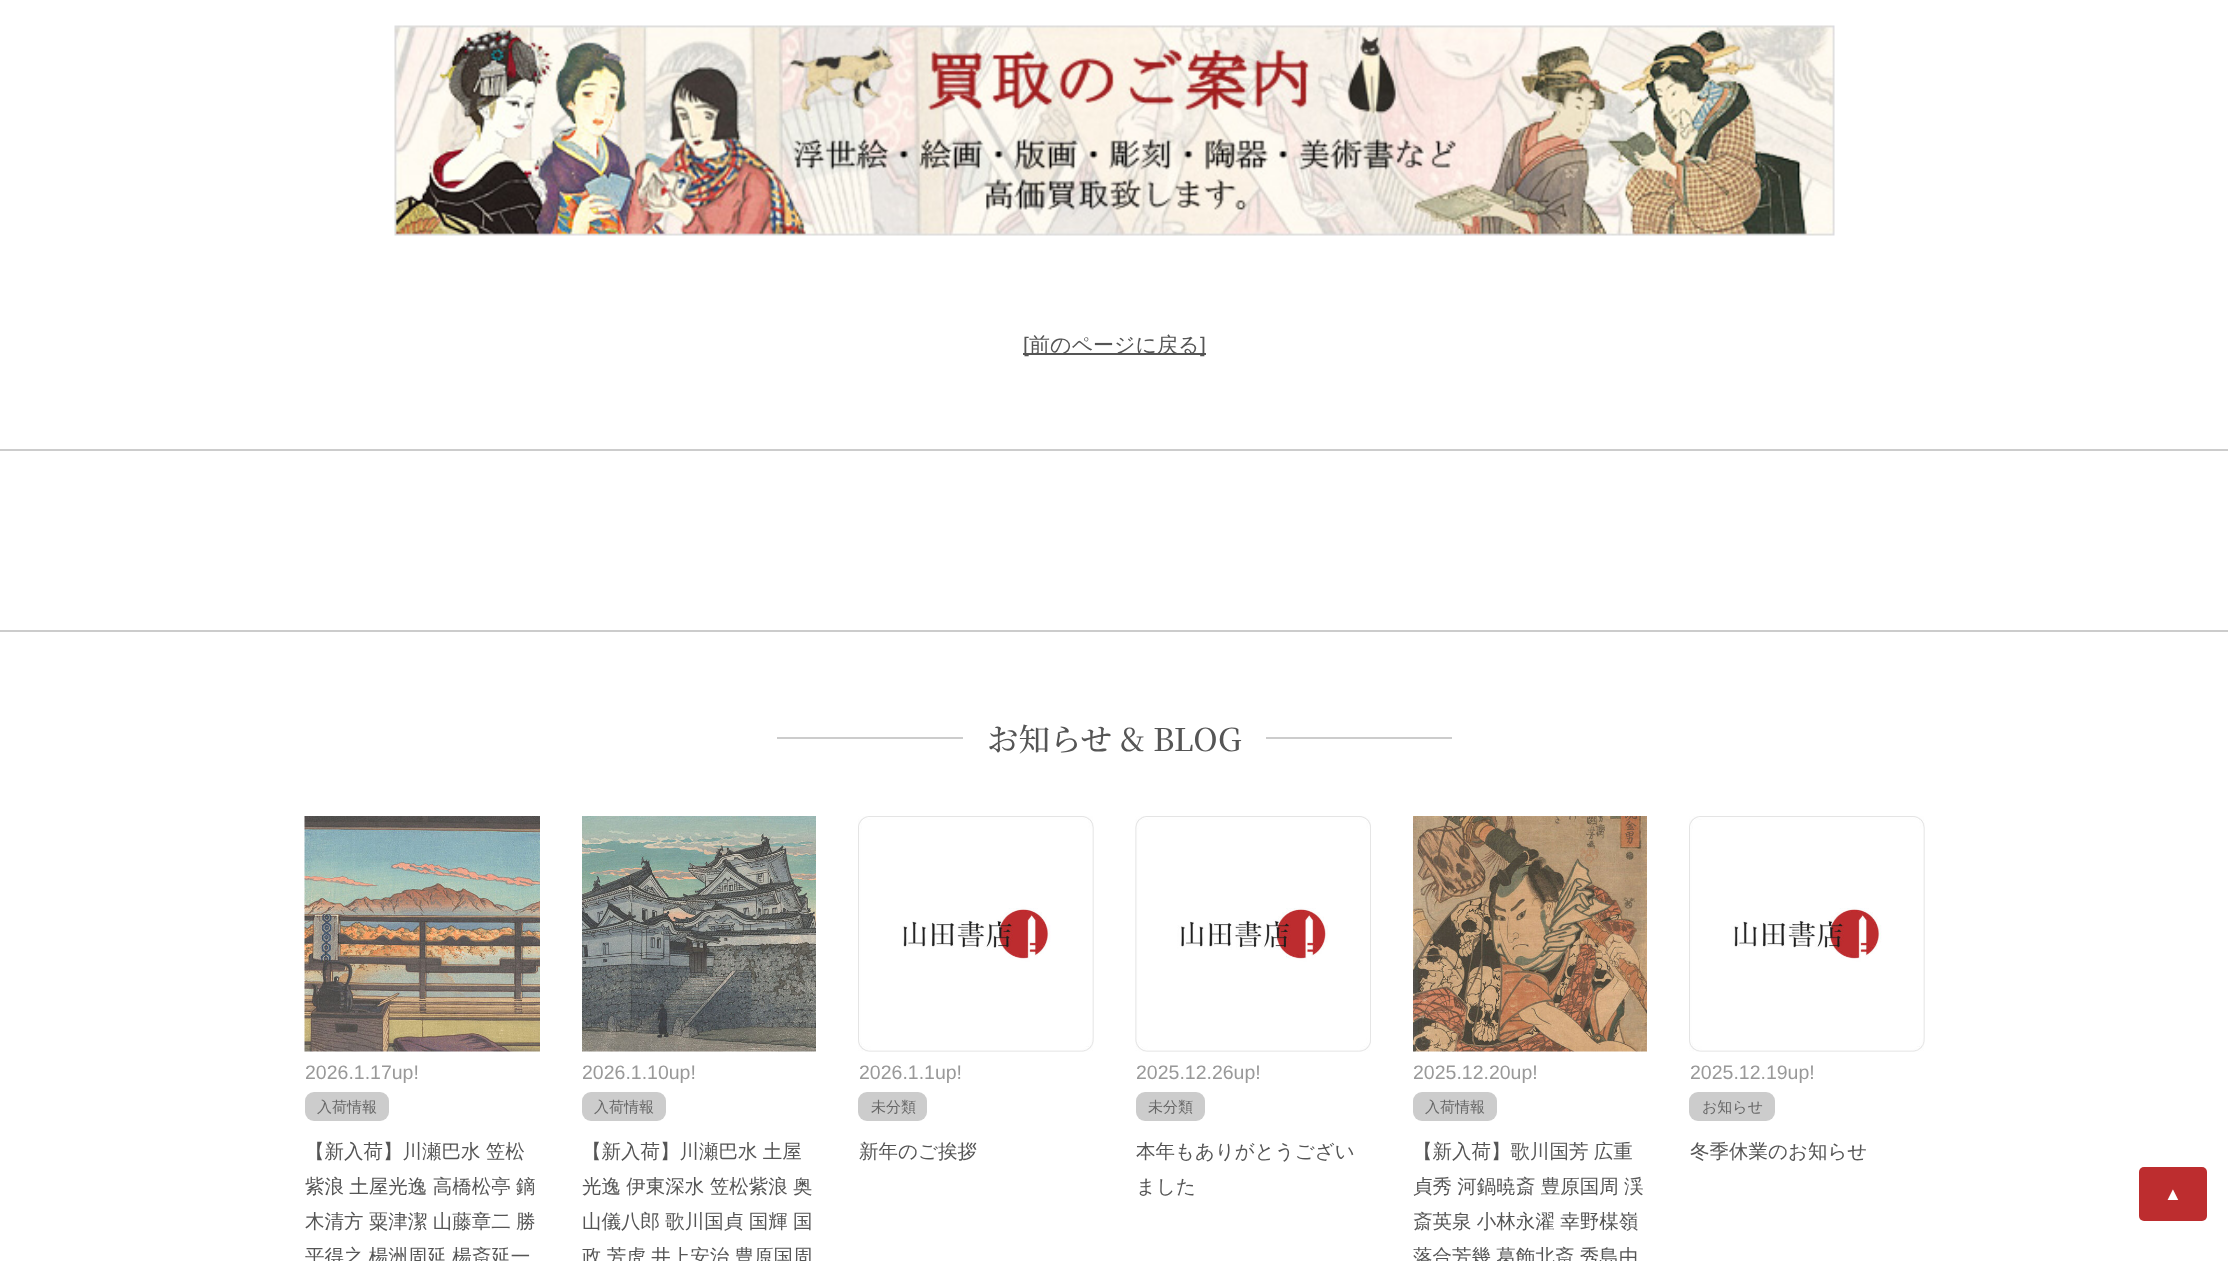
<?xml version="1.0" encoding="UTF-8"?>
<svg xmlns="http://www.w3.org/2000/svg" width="2228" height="1261">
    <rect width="100%" height="100%" fill="#FFFFFF"/>
    <image x="394" y="25" width="1441" height="211" href="img_01.png"/>
    <rect x="1023" y="353" width="183" height="2" fill="#555555"/>
    <text x="1023" y="352" font-family="Liberation Sans" font-size="21" fill="#555555">[</text>
    <text x="1029" y="352" font-family="WenQuanYi Zen Hei" font-size="21" font-weight="500" fill="#555555">前のページに戻る</text>
    <text x="1200" y="352" font-family="Liberation Sans" font-size="21" fill="#555555">]</text>
    <rect x="0" y="449" width="2228" height="2" fill="#CCCCCC"/>
    <rect x="0" y="630" width="2228" height="2" fill="#CCCCCC"/>
    <rect x="777" y="737" width="186" height="2" fill="#CCCCCC"/>
    <text x="987" y="751" font-family="Noto Serif JP" font-size="31.5" font-weight="200" fill="#555555">お知らせ &amp; BLOG</text>
    <rect x="1266" y="737" width="186" height="2" fill="#CCCCCC"/>
    <image x="304" y="816" width="236" height="236" href="img_02.png"/>
    <text x="305" y="1079" font-family="Liberation Sans" font-size="19.5" fill="#999999">2026.1.17up!</text>
    <rect x="305" y="1092" width="84" height="29" rx="9" fill="#CCCCCC"/>
    <text x="317" y="1112" font-family="WenQuanYi Zen Hei" font-size="15" font-weight="500" fill="#666666">入荷情報</text>
    <text font-family="WenQuanYi Zen Hei" font-size="19.5" font-weight="500" fill="#555555">
        <tspan x="305" y="1158" word-spacing="-0.5">【新入荷】川瀬巴水 笠松</tspan>
        <tspan x="305" y="1193" word-spacing="-0.5">紫浪 土屋光逸 高橋松亭 鏑</tspan>
        <tspan x="305" y="1228" word-spacing="-0.5">木清方 粟津潔 山藤章二 勝</tspan>
        <tspan x="305" y="1263" word-spacing="-0.5">平得之 楊洲周延 楊斎延一</tspan>
    </text>
    <image x="582" y="816" width="234" height="236" href="img_03.png"/>
    <text x="582" y="1079" font-family="Liberation Sans" font-size="19.5" fill="#999999">2026.1.10up!</text>
    <rect x="582" y="1092" width="84" height="29" rx="9" fill="#CCCCCC"/>
    <text x="594" y="1112" font-family="WenQuanYi Zen Hei" font-size="15" font-weight="500" fill="#666666">入荷情報</text>
    <text font-family="WenQuanYi Zen Hei" font-size="19.5" font-weight="500" fill="#555555">
        <tspan x="582" y="1158" word-spacing="-0.5">【新入荷】川瀬巴水 土屋</tspan>
        <tspan x="582" y="1193" word-spacing="-0.5">光逸 伊東深水 笠松紫浪 奥</tspan>
        <tspan x="582" y="1228" word-spacing="-0.5">山儀八郎 歌川国貞 国輝 国</tspan>
        <tspan x="582" y="1263" word-spacing="-0.5">政 芳虎 井上安治 豊原国周</tspan>
    </text>
    <image x="858" y="816" width="236" height="236" href="img_04.png"/>
    <text x="859" y="1079" font-family="Liberation Sans" font-size="19.5" fill="#999999">2026.1.1up!</text>
    <rect x="858" y="1092" width="69" height="29" rx="9" fill="#CCCCCC"/>
    <text x="871" y="1112" font-family="WenQuanYi Zen Hei" font-size="15" font-weight="500" fill="#666666">未分類</text>
    <text x="859" y="1158" font-family="WenQuanYi Zen Hei" font-size="19.5" font-weight="500" fill="#555555">新年のご挨拶</text>
    <image x="1135" y="816" width="236" height="236" href="img_05.png"/>
    <text x="1136" y="1079" font-family="Liberation Sans" font-size="19.5" fill="#999999">2025.12.26up!</text>
    <rect x="1136" y="1092" width="69" height="29" rx="9" fill="#CCCCCC"/>
    <text x="1148" y="1112" font-family="WenQuanYi Zen Hei" font-size="15" font-weight="500" fill="#666666">未分類</text>
    <text font-family="WenQuanYi Zen Hei" font-size="19.5" font-weight="500" fill="#555555">
        <tspan x="1136" y="1158">本年もありがとうござい</tspan>
        <tspan x="1136" y="1193">ました</tspan>
    </text>
    <image x="1413" y="816" width="234" height="236" href="img_06.png"/>
    <text x="1413" y="1079" font-family="Liberation Sans" font-size="19.5" fill="#999999">2025.12.20up!</text>
    <rect x="1413" y="1092" width="84" height="29" rx="9" fill="#CCCCCC"/>
    <text x="1425" y="1112" font-family="WenQuanYi Zen Hei" font-size="15" font-weight="500" fill="#666666">入荷情報</text>
    <text font-family="WenQuanYi Zen Hei" font-size="19.5" font-weight="500" fill="#555555">
        <tspan x="1413" y="1158" word-spacing="-0.5">【新入荷】歌川国芳 広重</tspan>
        <tspan x="1413" y="1193" word-spacing="-0.5">貞秀 河鍋暁斎 豊原国周 渓</tspan>
        <tspan x="1413" y="1228" word-spacing="-0.5">斎英泉 小林永濯 幸野楳嶺</tspan>
        <tspan x="1413" y="1263" word-spacing="-0.5">落合芳幾 葛飾北斎 秀島由</tspan>
    </text>
    <image x="1689" y="816" width="236" height="236" href="img_04.png"/>
    <text x="1690" y="1079" font-family="Liberation Sans" font-size="19.5" fill="#999999">2025.12.19up!</text>
    <rect x="1689" y="1092" width="86" height="29" rx="9" fill="#CCCCCC"/>
    <text x="1702" y="1112" font-family="WenQuanYi Zen Hei" font-size="15" font-weight="500" fill="#666666">お知らせ</text>
    <text x="1690" y="1158" font-family="WenQuanYi Zen Hei" font-size="19.5" font-weight="500" fill="#555555">冬季休業のお知らせ</text>
    <rect x="2139" y="1167" width="68" height="54" rx="5" fill="#BD2D2F"/>
    <text x="2164" y="1200" font-family="Liberation Sans" font-size="18" fill="#FFFFFF">▲</text>
</svg>
